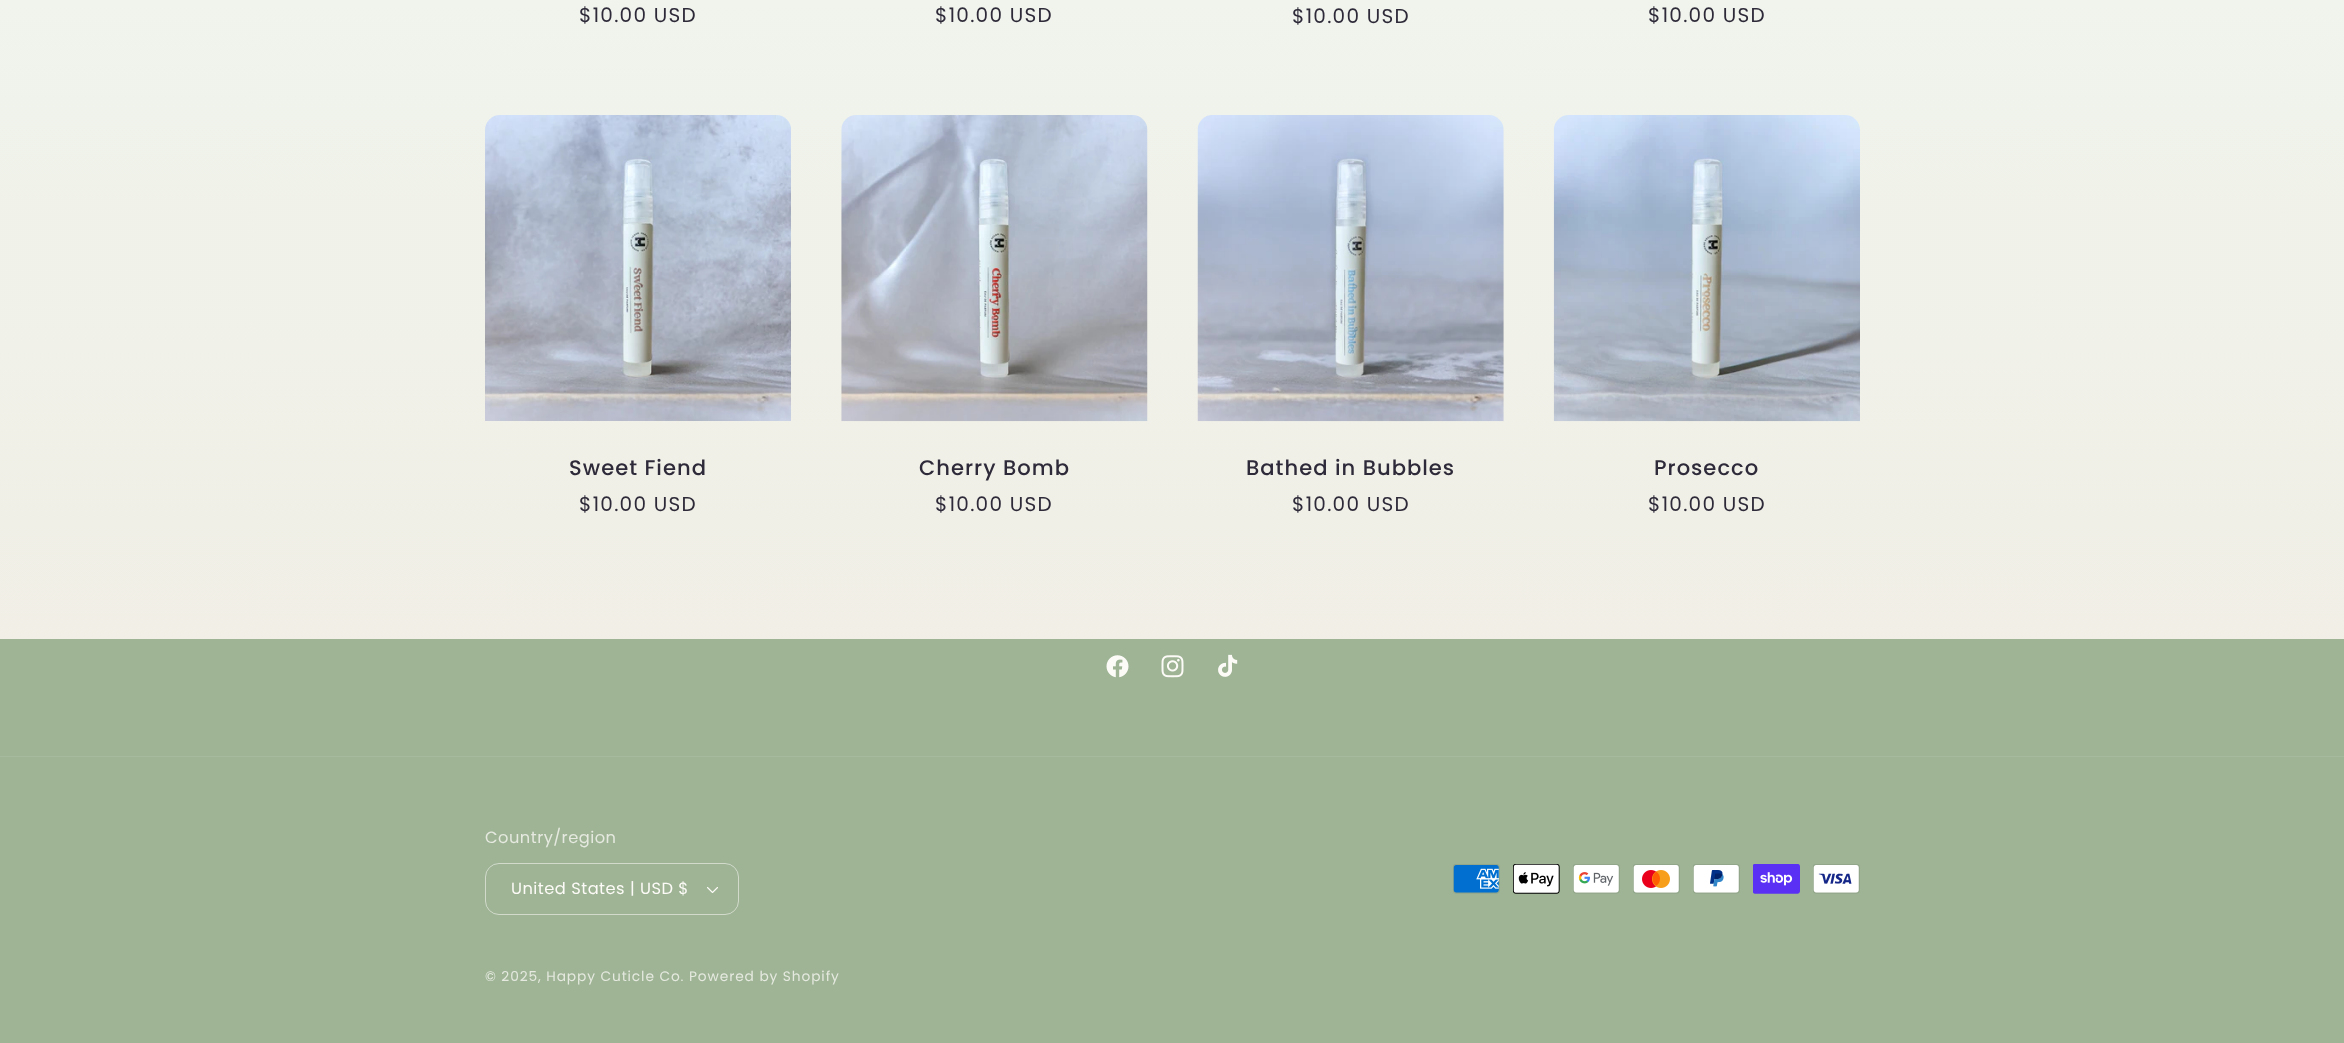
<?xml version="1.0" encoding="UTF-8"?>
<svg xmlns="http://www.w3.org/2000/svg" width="2344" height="1043">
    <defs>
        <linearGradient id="g1" gradientUnits="userSpaceOnUse" x1="1173" y1="0" x2="1173" y2="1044"><stop offset="0" stop-color="#F0F4EC"/><stop offset="1" stop-color="#F1EBE2"/></linearGradient>
    </defs>
    <rect width="100%" height="100%" fill="#FFFFFF"/>
    <rect x="0" y="0" width="2344" height="639" fill="url(#g1)"/>
    <text x="579" y="22" font-family="Poppins" font-size="20" letter-spacing="1.25" fill="#2E2A39">$10.00 USD</text>
    <text x="935" y="22" font-family="Poppins" font-size="20" letter-spacing="1.25" fill="#2E2A39">$10.00 USD</text>
    <text x="1292" y="23" font-family="Poppins" font-size="20" letter-spacing="1.25" fill="#2E2A39">$10.00 USD</text>
    <text x="1648" y="22" font-family="Poppins" font-size="20" letter-spacing="1.25" fill="#2E2A39">$10.00 USD</text>
    <image x="485" y="115" width="306" height="306" href="img_01.png"/>
    <text x="569" y="475" font-family="Poppins" font-size="21.1" font-weight="500" letter-spacing="1" fill="#2E2A39">Sweet Fiend</text>
    <text x="579" y="511" font-family="Poppins" font-size="20" letter-spacing="1.25" fill="#2E2A39">$10.00 USD</text>
    <image x="841" y="115" width="307" height="307" href="img_02.png"/>
    <text x="919" y="475" font-family="Poppins" font-size="21.1" font-weight="500" letter-spacing="1" fill="#2E2A39">Cherry Bomb</text>
    <text x="935" y="511" font-family="Poppins" font-size="20" letter-spacing="1.25" fill="#2E2A39">$10.00 USD</text>
    <image x="1197" y="115" width="307" height="307" href="img_03.png"/>
    <text x="1246" y="475" font-family="Poppins" font-size="21.1" font-weight="500" letter-spacing="1" fill="#2E2A39">Bathed in Bubbles</text>
    <text x="1292" y="511" font-family="Poppins" font-size="20" letter-spacing="1.25" fill="#2E2A39">$10.00 USD</text>
    <image x="1553" y="115" width="307" height="307" href="img_04.png"/>
    <text x="1654" y="475" font-family="Poppins" font-size="21.1" font-weight="500" letter-spacing="1" fill="#2E2A39">Prosecco</text>
    <text x="1648" y="511" font-family="Poppins" font-size="20" letter-spacing="1.25" fill="#2E2A39">$10.00 USD</text>
    <rect x="0" y="639" width="2344" height="404" fill="#9EB495"/>
    <image x="1106" y="655" width="23" height="23" href="img_05.png"/>
    <image x="1161" y="655" width="23" height="23" href="img_06.png"/>
    <image x="1218" y="654" width="20" height="23" href="img_07.png"/>
    <rect x="0" y="756" width="2344" height="1" fill="#A6BA9D"/>
    <text x="485" y="843" font-family="Poppins" font-size="16.25" letter-spacing="0.5" fill="#E5E9DF">Country/region</text>
    <image x="707" y="887" width="11" height="6" href="img_08.png"/>
    <rect x="485.5" y="863.5" width="253" height="51" rx="13.5" fill="none" stroke="#D2DBCB"/>
    <text x="511" y="894" font-family="Poppins" font-size="16.25" letter-spacing="0.5" fill="#FDFBF7">United States | USD $</text>
    <image x="1453" y="864" width="47" height="30" href="img_09.png"/>
    <image x="1513" y="864" width="47" height="30" href="img_10.png"/>
    <image x="1573" y="864" width="47" height="30" href="img_11.png"/>
    <image x="1633" y="864" width="47" height="30" href="img_12.png"/>
    <image x="1693" y="864" width="47" height="30" href="img_13.png"/>
    <image x="1753" y="864" width="47" height="30" href="img_14.png"/>
    <image x="1813" y="864" width="47" height="30" href="img_15.png"/>
    <text x="485" y="981" font-family="Poppins" font-size="13.75" letter-spacing="0.9" fill="#E5E9DF">© 2025, Happy Cuticle Co.</text>
    <text x="689" y="981" font-family="Poppins" font-size="13.75" letter-spacing="0.9" fill="#E5E9DF">Powered by Shopify</text>
</svg>
